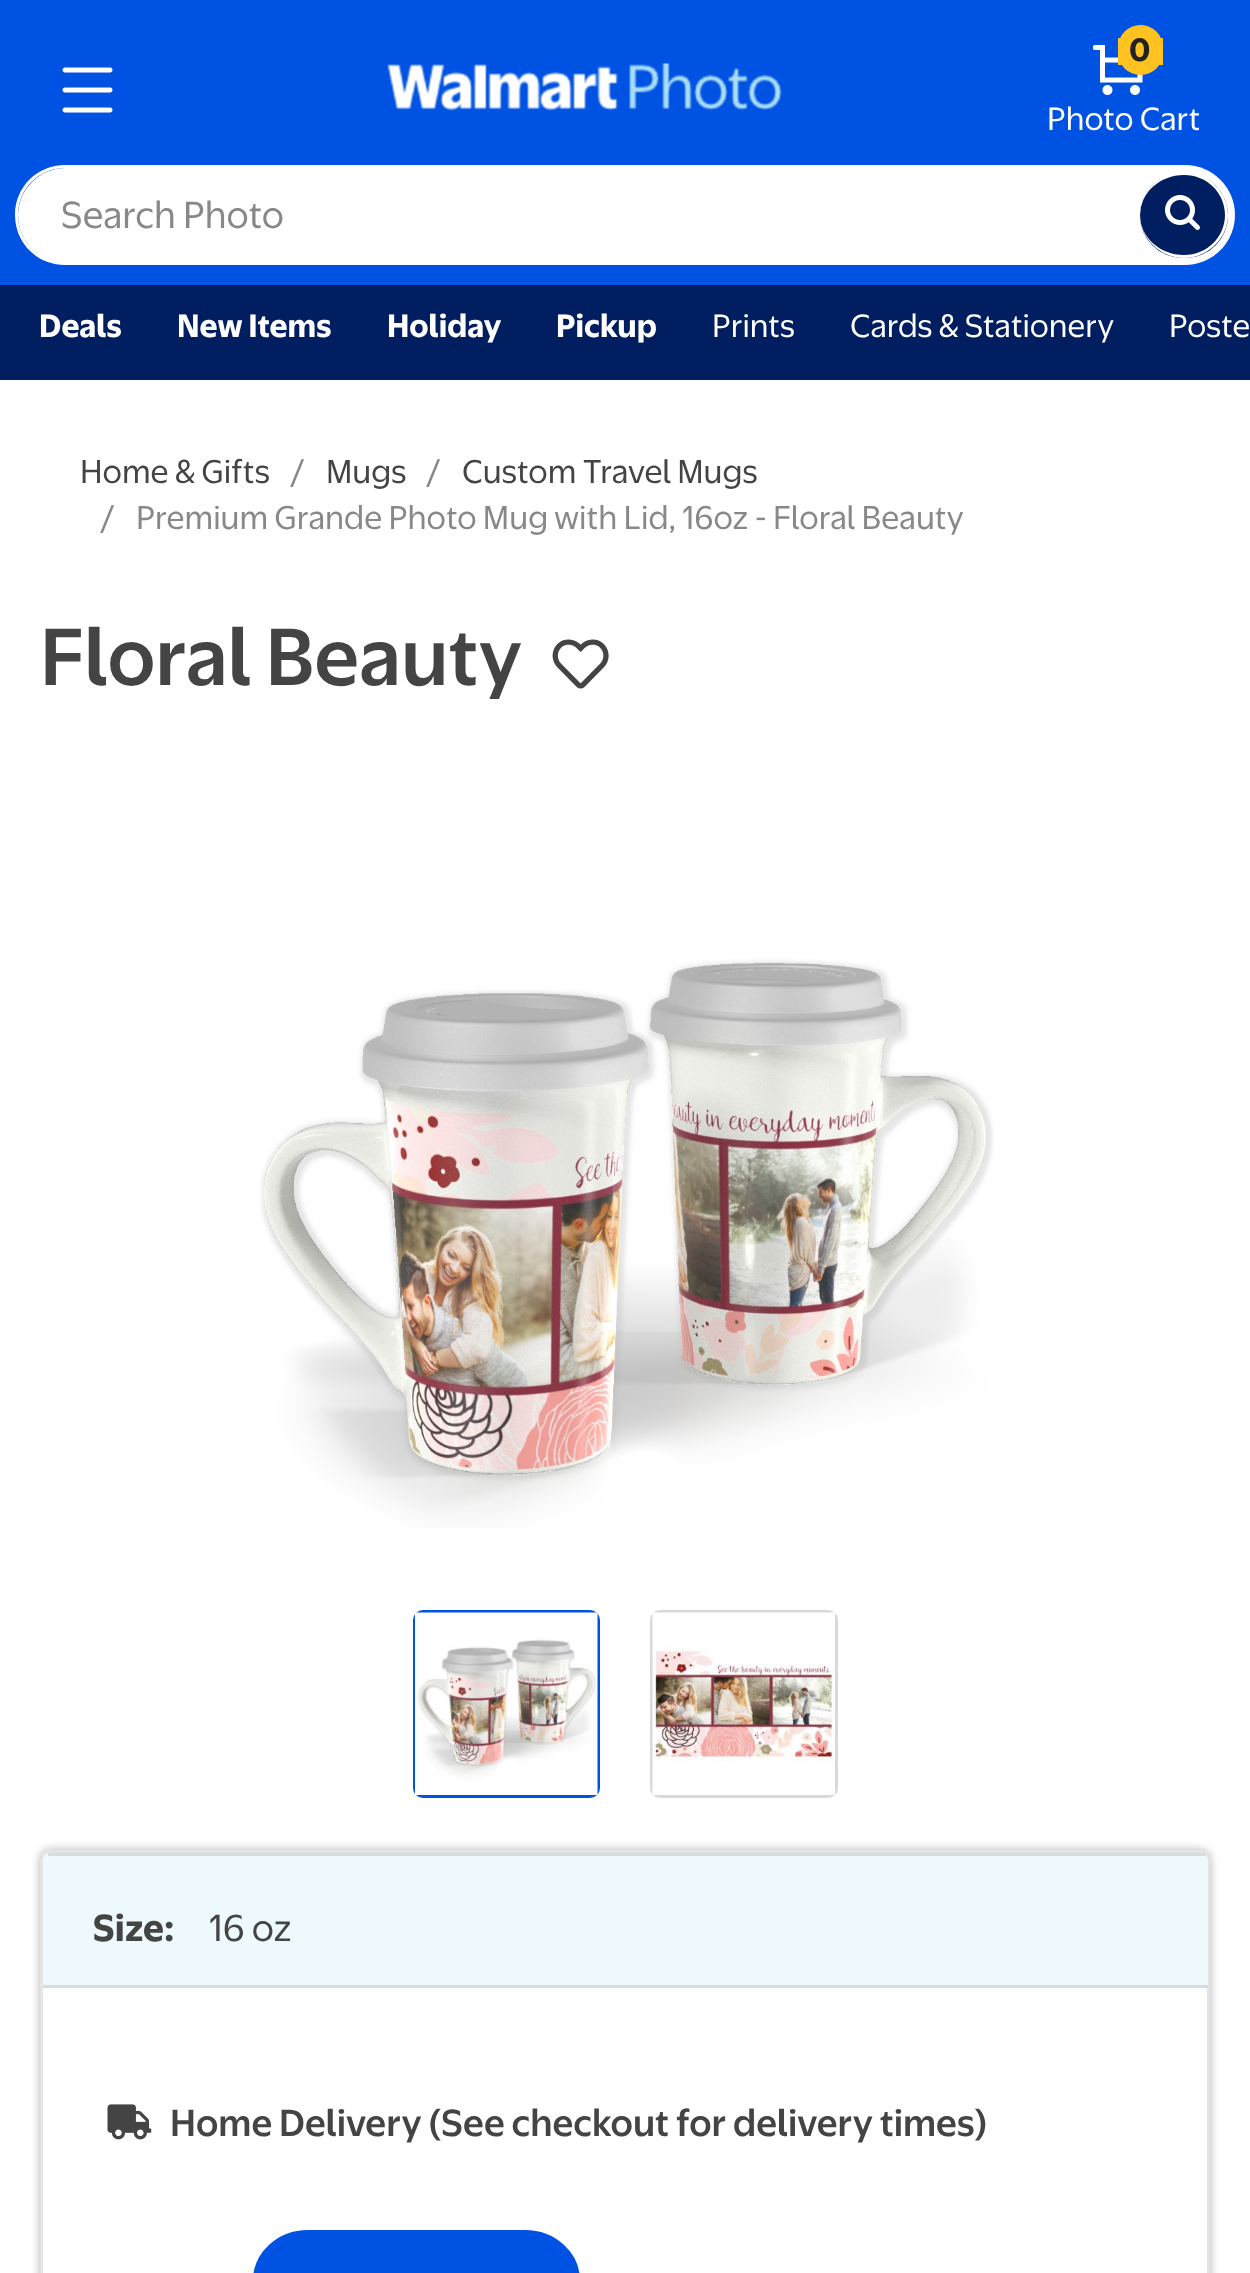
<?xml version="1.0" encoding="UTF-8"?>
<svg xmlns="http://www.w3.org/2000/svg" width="1250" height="2273">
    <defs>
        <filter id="blur1" x="-50%" y="-200%" width="200%" height="500%"><feGaussianBlur stdDeviation="5"/></filter>
    </defs>
    <rect width="100%" height="100%" fill="#FFFFFF"/>
    <rect x="0" y="0" width="1250" height="285" fill="#0053E2"/>
    <image x="62" y="67" width="51" height="46" href="img_01.png"/>
    <image x="387" y="62" width="395" height="49" href="img_02.png"/>
    <image x="1093" y="45" width="50" height="50" href="img_03.png"/>
    <rect x="1118" y="25" width="45" height="50" rx="22.5" fill="#FFC220"/>
    <rect x="1159" y="38" width="4" height="27" fill="#FFC220"/>
    <rect x="1118" y="38" width="4" height="27" fill="#FFC220"/>
    <text x="1129" y="61" font-family="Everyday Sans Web" font-size="30" font-weight="700" fill="#222222">0</text>
    <text x="1047" y="130" font-family="Everyday Sans Web" font-size="30" fill="#FFFFFF">Photo Cart</text>
    <path d="M 65.5 168 H 1140 V 263 H 65.5 C 39.5 263 18 241.5 18 215.5 C 18 189.5 39.5 168 65.5 168 Z" fill="#FFFFFF"/>
    <path d="M 65 165 H 1140 V 265 H 65 C 37 265 15 243 15 215 C 15 187 37 165 65 165 Z M 65 168 H 1140 V 262 H 65 C 39 262 18 241 18 215 C 18 189 39 168 65 168 Z" fill="#FFFFFF" fill-rule="evenodd"/>
    <text x="61" y="228" font-family="Everyday Sans Web" font-size="35" fill="#888888">Search Photo</text>
    <path d="M 1140 165 H 1185 C 1212.5 165 1235 187.5 1235 215 C 1235 242.5 1212.5 265 1185 265 H 1140 Z" fill="#FFFFFF"/>
    <rect x="1140" y="173" width="88" height="85" rx="42.5" fill="#001E60"/>
    <path d="M 1184 172 C 1208 172 1228 192 1228 215 C 1228 238 1208 258 1184 258 C 1160 258 1140 238 1140 215 C 1140 192 1160 172 1184 172 Z M 1184 175 C 1207 175 1225 193 1225 215 C 1225 237 1207 255 1184 255 C 1160 255 1140 237 1140 215 C 1140 193 1160 175 1184 175 Z" fill="#FFFFFF" fill-rule="evenodd"/>
    <image x="1165" y="195" width="35" height="35" href="img_04.png"/>
    <rect x="0" y="285" width="1250" height="95" fill="#001E60"/>
    <text x="39" y="337" font-family="Everyday Sans Web" font-size="30" font-weight="700" fill="#FFFFFF">Deals</text>
    <text x="177" y="337" font-family="Everyday Sans Web" font-size="30" font-weight="700" fill="#FFFFFF">New Items</text>
    <text x="387" y="337" font-family="Everyday Sans Web" font-size="30" font-weight="700" fill="#FFFFFF">Holiday</text>
    <text x="556" y="337" font-family="Everyday Sans Web" font-size="30" font-weight="700" fill="#FFFFFF">Pickup</text>
    <text x="712" y="337" font-family="Everyday Sans Web" font-size="30" fill="#FFFFFF">Prints</text>
    <text x="850" y="337" font-family="Everyday Sans Web" font-size="30" fill="#FFFFFF">Cards &amp; Stationery</text>
    <text x="1169" y="337" font-family="Everyday Sans Web" font-size="30" fill="#FFFFFF">Poste</text>
    <text x="80" y="483" font-family="Everyday Sans Web" font-size="30.6" fill="#444444">Home &amp; Gifts</text>
    <text x="290" y="483" font-family="Everyday Sans Web" font-size="30.6" fill="#888888">/</text>
    <text x="326" y="483" font-family="Everyday Sans Web" font-size="30.6" fill="#444444">Mugs</text>
    <text x="426" y="483" font-family="Everyday Sans Web" font-size="30.6" fill="#888888">/</text>
    <text x="462" y="483" font-family="Everyday Sans Web" font-size="30.6" fill="#444444">Custom Travel Mugs</text>
    <text x="100" y="529" font-family="Everyday Sans Web" font-size="30.6" fill="#888888">/</text>
    <text x="136" y="529" font-family="Everyday Sans Web" font-size="30.6" fill="#888888">Premium Grande Photo Mug with Lid, 16oz - Floral Beauty</text>
    <text x="40" y="685" font-family="Everyday Sans Web" font-size="75" font-weight="500" fill="#444444">Floral Beauty</text>
    <image x="552" y="639" width="57" height="50" href="img_05.png"/>
    <image x="260" y="959" width="734" height="569" href="img_06.png"/>
    <rect x="414.5" y="1611.5" width="184" height="185" rx="8.5" fill="none" stroke="#0053E2" stroke-width="3"/>
    <image x="415" y="1612" width="183" height="183" href="img_07.png"/>
    <rect x="651.5" y="1611.5" width="185" height="185" rx="8.5" fill="none" stroke="#D9D9D9" stroke-width="3"/>
    <image x="652" y="1612" width="183" height="183" href="img_08.png"/>
    <rect x="40" y="1850" width="1170" height="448" rx="10" fill="#222222" fill-opacity="0.3" filter="url(#blur1)"/>
    <rect x="40" y="1850" width="1170" height="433" rx="10" fill="#FFFFFF"/>
    <rect x="41.5" y="1851.5" width="1167" height="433" rx="8.5" fill="none" stroke="#222222" stroke-opacity="0.12" stroke-width="3"/>
    <path d="M 51 1853 H 1200 C 1204.5 1853 1208 1856.5 1208 1861 V 1988 H 43 V 1861 C 43 1856.5 46.5 1853 51 1853 Z" fill="#EDF9FD"/>
    <rect x="48" y="1853" width="1157" height="3" fill="#222222" fill-opacity="0.12"/>
    <rect x="43" y="1985" width="1165" height="3" fill="#D4DEE2"/>
    <text x="93" y="1941" font-family="Everyday Sans Web" font-size="35" font-weight="700" fill="#444444">Size:</text>
    <text x="209" y="1941" font-family="Everyday Sans Web" font-size="35" fill="#444444">16 oz</text>
    <image x="107" y="2104" width="45" height="36" href="img_09.png"/>
    <text x="170" y="2136" font-family="Everyday Sans Web" font-size="35" font-weight="500" fill="#444444">Home Delivery (See checkout for delivery times)</text>
    <rect x="254.5" y="2231.5" width="324" height="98" rx="53.5" fill="#0053E2" stroke="#0053E2" stroke-width="3"/>
</svg>
